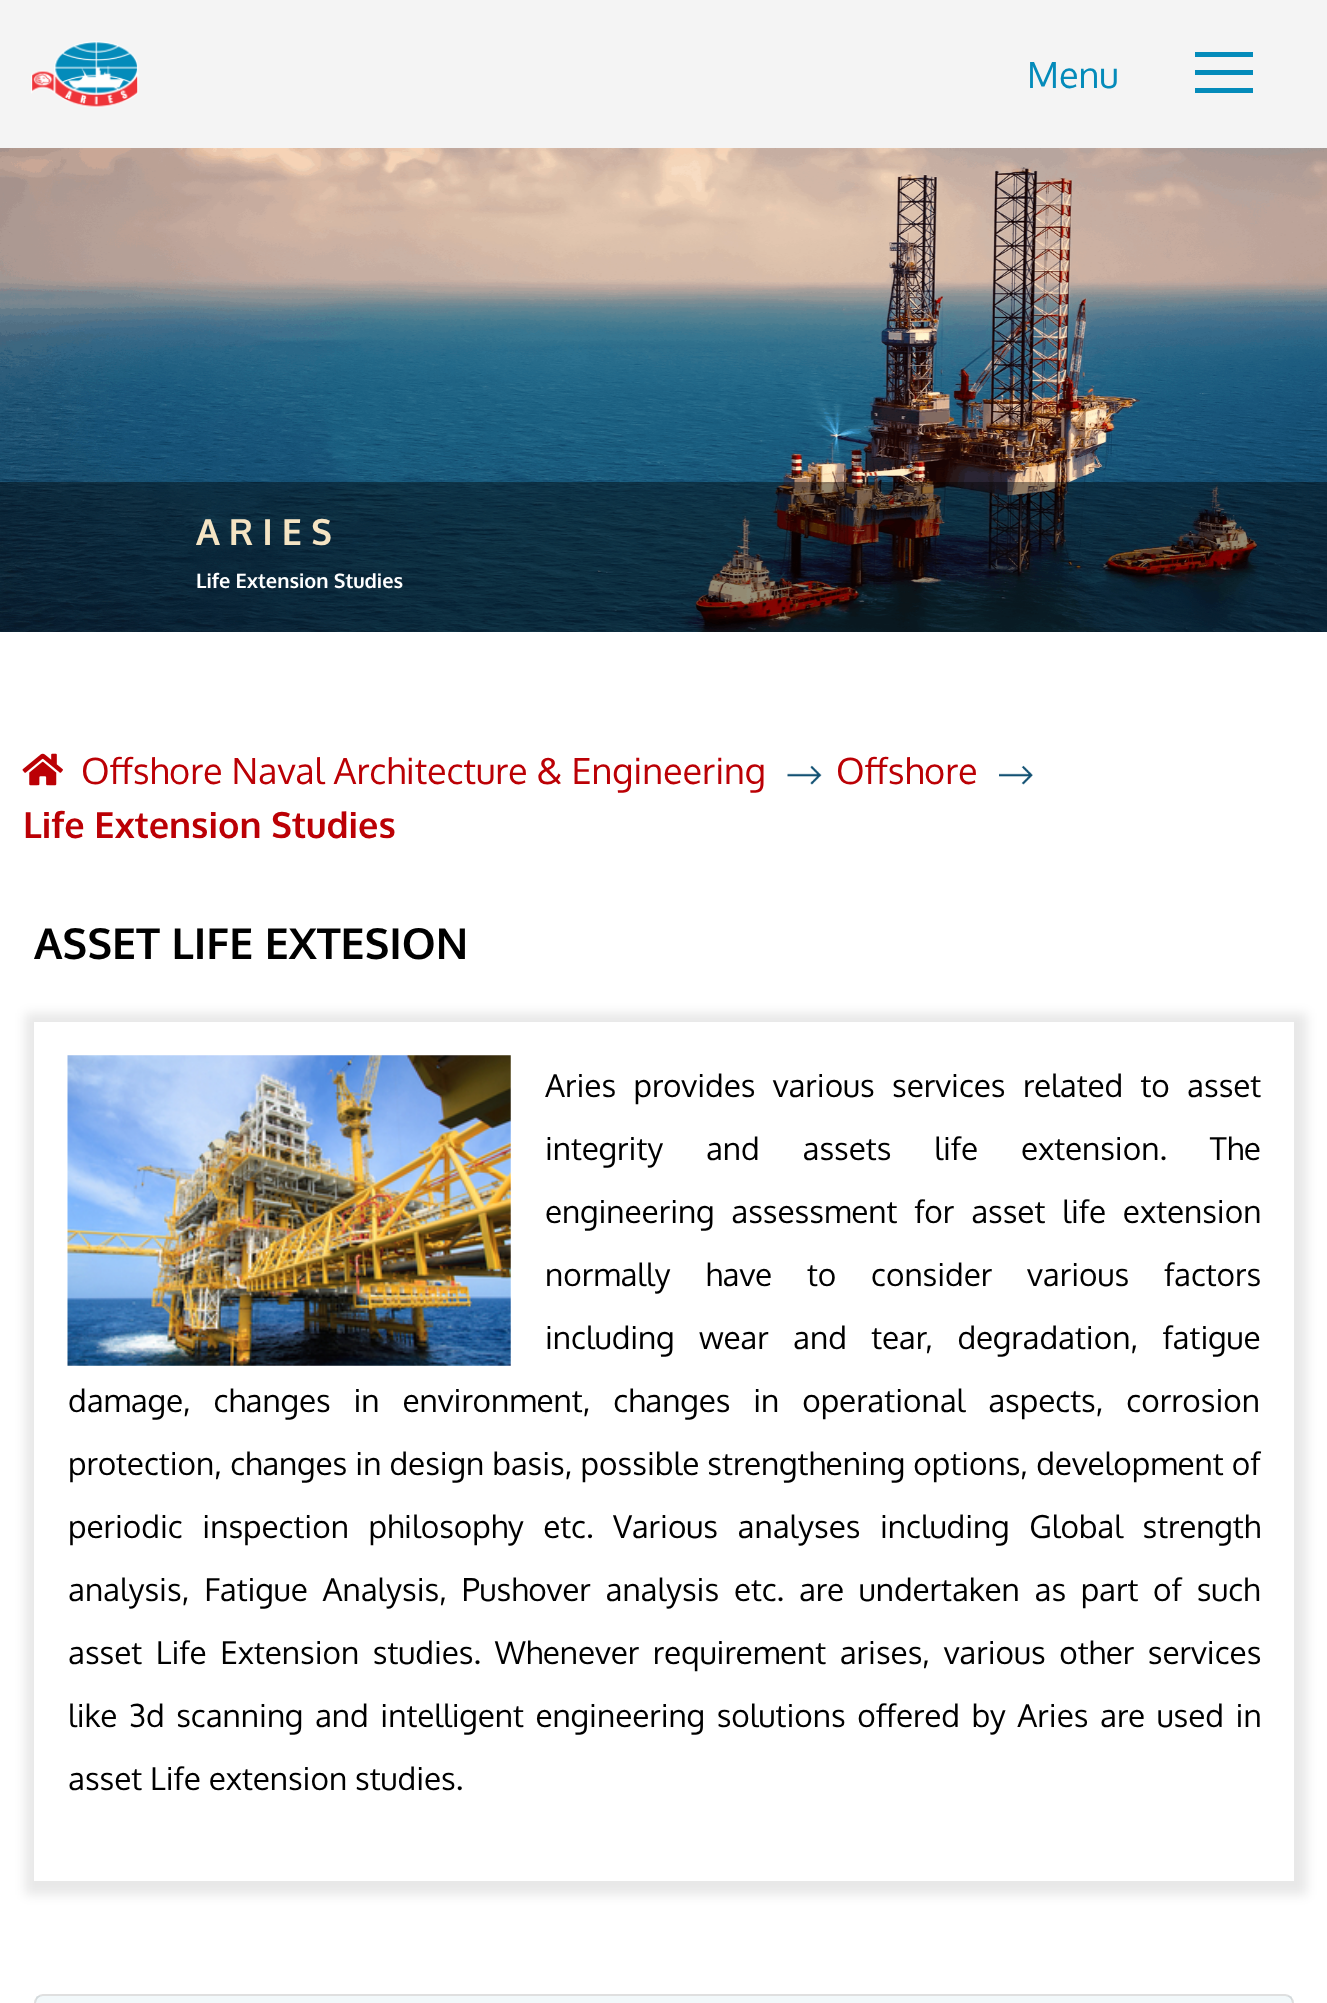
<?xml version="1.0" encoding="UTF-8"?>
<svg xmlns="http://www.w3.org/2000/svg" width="1327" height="2003">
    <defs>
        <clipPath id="clip1"><path d="M 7 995 H 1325 V 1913 H 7 Z M 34 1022 H 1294 V 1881 H 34 Z" clip-rule="evenodd"/></clipPath>
        <filter id="blur1" x="-50%" y="-200%" width="200%" height="500%"><feGaussianBlur stdDeviation="5.5"/></filter>
    </defs>
    <rect width="100%" height="100%" fill="#FFFFFF"/>
    <rect x="0" y="0" width="1327" height="148" fill="#F3F3F3" fill-opacity="0.9"/>
    <image x="31" y="41" width="108" height="67" href="img_01.png"/>
    <text x="1027" y="88" font-family="Oxygen" font-size="36" fill="#048BBA">Menu</text>
    <rect x="1195" y="52" width="58" height="5" fill="#048BBA"/>
    <rect x="1195" y="70" width="58" height="5" fill="#048BBA"/>
    <rect x="1195" y="88" width="58" height="5" fill="#048BBA"/>
    <image x="0" y="148" width="1327" height="484" href="img_02.png"/>
    <rect x="0" y="482" width="1327" height="150" fill="#000000" fill-opacity="0.42"/>
    <text x="196" y="545" font-family="Oxygen" font-size="36" font-weight="700" letter-spacing="9" fill="#F5E4C3">ARIES</text>
    <text x="196" y="588" font-family="Oxygen" font-size="20" font-weight="700" fill="#FFFFFF">Life Extension Studies</text>
    <image x="22" y="753" width="41" height="33" href="img_03.png"/>
    <text x="81" y="784" font-family="Oxygen" font-size="36" fill="#BB0005">Offshore Naval Architecture &amp; Engineering</text>
    <image x="787" y="765" width="35" height="20" href="img_04.png"/>
    <text x="836" y="784" font-family="Oxygen" font-size="36" fill="#BB0005">Offshore</text>
    <image x="999" y="765" width="34" height="20" href="img_05.png"/>
    <text x="23" y="838" font-family="Oxygen" font-size="36" font-weight="700" fill="#BB0005">Life Extension Studies</text>
    <text x="34" y="959" font-family="Oxygen" font-size="42.75" font-weight="700" fill="#000000">ASSET LIFE EXTESION</text>
    <g clip-path="url(#clip1)">
        <rect x="25" y="1013" width="1282" height="882" fill="#000000" fill-opacity="0.09" filter="url(#blur1)"/>
    </g>
    <image x="67" y="1055" width="444" height="311" href="img_06.png"/>
    <text x="545" y="1097" word-spacing="9.5" font-family="Oxygen" font-size="31.5" fill="#000000">Aries provides various services related to asset</text>
    <text x="545" y="1160" word-spacing="35" font-family="Oxygen" font-size="31.5" fill="#000000">integrity and assets life extension. The</text>
    <text x="545" y="1223" word-spacing="9" font-family="Oxygen" font-size="31.5" fill="#000000">engineering assessment for asset life extension</text>
    <text x="545" y="1286" word-spacing="27" font-family="Oxygen" font-size="31.5" fill="#000000">normally have to consider various factors</text>
    <text x="545" y="1349" word-spacing="16.5" font-family="Oxygen" font-size="31.5" fill="#000000">including wear and tear, degradation, fatigue</text>
    <text x="68" y="1412" word-spacing="15" font-family="Oxygen" font-size="31.5" fill="#000000">damage, changes in environment, changes in operational aspects, corrosion</text>
    <text x="68" y="1475" word-spacing="0.25" font-family="Oxygen" font-size="31.5" fill="#000000">protection, changes in design basis, possible strengthening options, development of</text>
    <text x="68" y="1538" word-spacing="11.75" font-family="Oxygen" font-size="31.5" fill="#000000">periodic inspection philosophy etc. Various analyses including Global strength</text>
    <text x="68" y="1601" word-spacing="6.9" font-family="Oxygen" font-size="31.5" fill="#000000">analysis, Fatigue Analysis, Pushover analysis etc. are undertaken as part of such</text>
    <text x="68" y="1664" word-spacing="5.75" font-family="Oxygen" font-size="31.5" fill="#000000">asset Life Extension studies. Whenever requirement arises, various other services</text>
    <text x="68" y="1727" word-spacing="3.75" font-family="Oxygen" font-size="31.5" fill="#000000">like 3d scanning and intelligent engineering solutions offered by Aries are used in</text>
    <text x="68" y="1790" font-family="Oxygen" font-size="31.5" fill="#000000">asset Life extension studies.</text>
    <rect x="35" y="1995" width="1258" height="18" rx="8" fill="none" stroke="#DFDFDF" stroke-width="2"/>
    <rect x="36" y="1996" width="1256" height="7" fill="#02779E" fill-opacity="0.05"/>
</svg>
